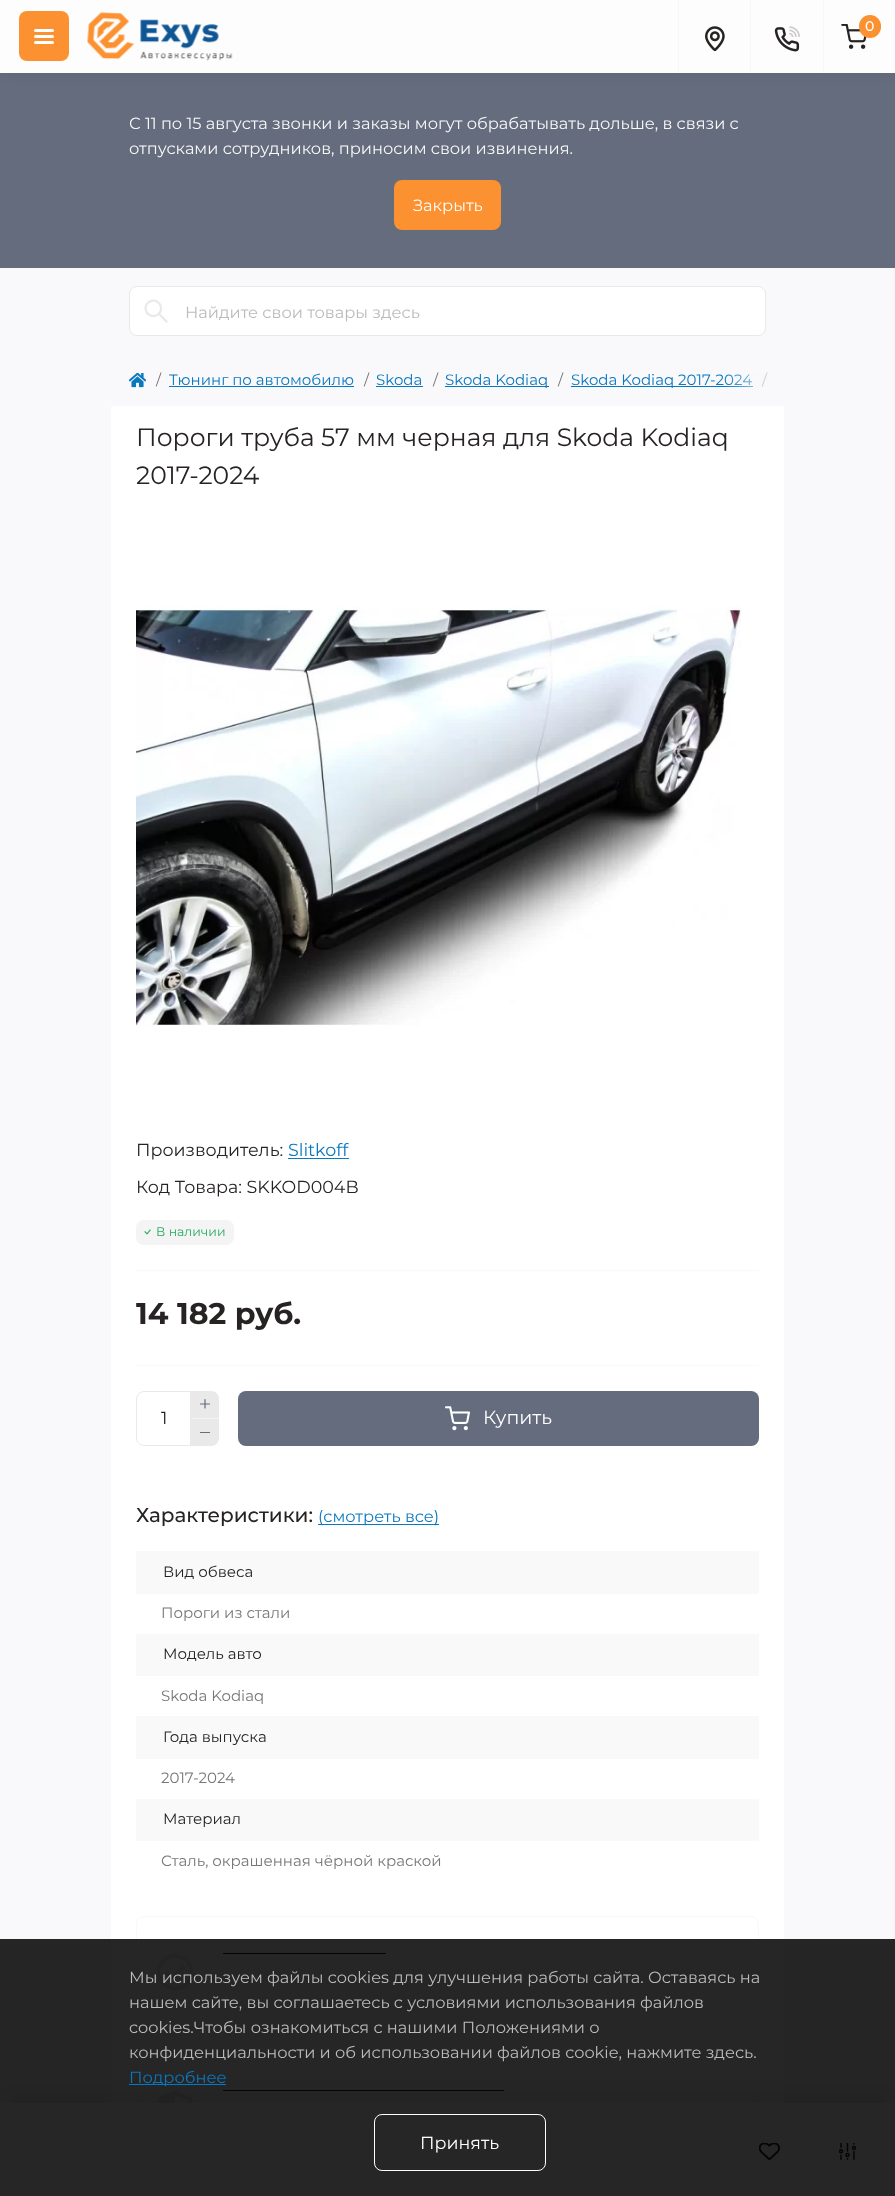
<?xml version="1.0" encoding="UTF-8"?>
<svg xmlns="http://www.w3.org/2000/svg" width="895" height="2196">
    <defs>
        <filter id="blur1" x="-50%" y="-200%" width="200%" height="500%"><feGaussianBlur stdDeviation="9.5"/></filter>
        <linearGradient id="g1" gradientUnits="userSpaceOnUse" x1="723" y1="386" x2="785" y2="386"><stop offset="0" stop-color="#F8F8FB" stop-opacity="0"/><stop offset="1" stop-color="#F8F8FB"/></linearGradient>
    </defs>
    <rect width="100%" height="100%" fill="#F9F9FC"/>
    <rect x="0" y="73" width="895" height="195" fill="#656C7D"/>
    <rect x="0" y="0" width="895" height="73" fill="#000000" fill-opacity="0.06" filter="url(#blur1)"/>
    <rect x="0" y="0" width="895" height="73" fill="#FDFDFD"/>
    <rect x="19" y="11" width="50" height="50" rx="8" fill="#FB9130"/>
    <rect x="34" y="29" width="20" height="3" rx="1.5" fill="#FFFFFF"/>
    <rect x="34" y="35" width="20" height="3" rx="1.5" fill="#FFFFFF"/>
    <rect x="34" y="41" width="20" height="3" rx="1.5" fill="#FFFFFF"/>
    <rect x="678" y="0" width="1" height="73" fill="#F7F7F7"/>
    <image x="705" y="26" width="20" height="25" href="img_01.png"/>
    <rect x="750" y="0" width="1" height="73" fill="#F7F7F7"/>
    <image x="774" y="26" width="26" height="26" href="img_02.png"/>
    <image x="87" y="12" width="146" height="49" href="img_03.png"/>
    <rect x="823" y="0" width="1" height="73" fill="#F7F7F7"/>
    <image x="841" y="24" width="26" height="25" href="img_04.png"/>
    <rect x="859" y="15" width="22" height="23" rx="11" fill="#FB9130"/>
    <text x="865" y="31" font-family="Montserrat" font-size="14" font-weight="500" fill="#FFFFFF">0</text>
    <rect x="129.5" y="286.5" width="636" height="49" rx="7.5" fill="#FFFFFF" stroke="#E9E9E9"/>
    <image x="144" y="299" width="24" height="24" href="img_05.png"/>
    <text x="185" y="318" font-family="Montserrat" font-size="16.25" fill="#BBBBBB">Найдите свои товары здесь</text>
    <text font-family="Montserrat" font-size="16.25" fill="#F8F8F8">
        <tspan x="129" y="129">С 11 по 15 августа звонки и заказы могут обрабатывать дольше, в связи с</tspan>
        <tspan x="129" y="154">отпусками сотрудников, приносим свои извинения.</tspan>
    </text>
    <rect x="394" y="180" width="107" height="50" rx="8" fill="#FB9130"/>
    <text x="413" y="211" font-family="Montserrat" font-size="16.25" fill="#FFFFFF">Закрыть</text>
    <image x="129" y="373" width="17" height="15" href="img_06.png"/>
    <text x="156" y="385" font-family="Montserrat" font-size="15" fill="#777777">/</text>
    <text x="169" y="385" font-family="Montserrat" font-size="15" fill="#0A78BF">Тюнинг по автомобилю</text>
    <rect x="169" y="386" width="185" height="1" fill="#0A78BF"/>
    <text x="364" y="385" font-family="Montserrat" font-size="15" fill="#777777">/</text>
    <text x="376" y="385" font-family="Montserrat" font-size="15" fill="#0A78BF">Skoda</text>
    <rect x="376" y="386" width="47" height="1" fill="#0A78BF"/>
    <text x="433" y="385" font-family="Montserrat" font-size="15" fill="#777777">/</text>
    <rect x="445" y="386" width="104" height="1" fill="#0A78BF"/>
    <text x="445" y="385" font-family="Montserrat" font-size="15" fill="#0A78BF">Skoda Kodiaq</text>
    <text x="558" y="385" font-family="Montserrat" font-size="15" fill="#777777">/</text>
    <rect x="571" y="386" width="182" height="1" fill="#0A78BF"/>
    <text x="571" y="385" font-family="Montserrat" font-size="15" fill="#0A78BF">Skoda Kodiaq 2017-2024</text>
    <text x="762" y="385" font-family="Montserrat" font-size="15" fill="#777777">/</text>
    <rect x="724" y="372" width="44" height="15" fill="url(#g1)"/>
    <rect x="110.5" y="405.5" width="674" height="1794" rx="2" fill="#FFFFFF" stroke="#F9F9FC"/>
    <text font-family="Montserrat" font-size="25" fill="#272323">
        <tspan x="136" y="446">Пороги труба 57 мм черная для Skoda Kodiaq</tspan>
        <tspan x="136" y="484">2017-2024</tspan>
    </text>
    <image x="136" y="606" width="605" height="420" href="img_07.png"/>
    <rect x="136" y="1270" width="623" height="1" fill="#F9F9F9"/>
    <text x="136" y="1156" font-family="Montserrat" font-size="17.5" fill="#272323">Производитель:</text>
    <text x="288" y="1156" font-family="Montserrat" font-size="17.5" fill="#0A78BF">Slitkoff</text>
    <rect x="288" y="1158" width="61" height="1" fill="#0A78BF"/>
    <text x="136" y="1193" font-family="Montserrat" font-size="17.5" fill="#272323">Код Товара: SKKOD004B</text>
    <rect x="136" y="1220" width="98" height="25" rx="8" fill="#F4F4F4"/>
    <image x="144" y="1229" width="7" height="6" href="img_08.png"/>
    <text x="156" y="1236" font-family="Montserrat" font-size="12.5" fill="#27AE60">В наличии</text>
    <rect x="136" y="1365" width="623" height="1" fill="#F9F9F9"/>
    <text x="136" y="1324" font-family="Montserrat" font-size="30" font-weight="700" fill="#272323">14 182 руб.</text>
    <path d="M 144 1391.5 H 190.5 V 1445.5 H 144 C 140 1445.5 136.5 1442 136.5 1438 V 1399 C 136.5 1395 140 1391.5 144 1391.5 Z" fill="none" stroke="#E9E9E9"/>
    <text x="161" y="1424" font-family="Montserrat" font-size="17.5" fill="#272323">1</text>
    <path d="M 191 1391 H 211 C 215.5 1391 219 1394.5 219 1399 V 1418 H 191 Z" fill="#E9E9E9"/>
    <rect x="191" y="1418" width="28" height="1" fill="#F4F4F4"/>
    <path d="M 191 1419 H 219 V 1438 C 219 1442.5 215.5 1446 211 1446 H 191 Z" fill="#E9E9E9"/>
    <path d="M 200.5 1404 H 209.5 M 205 1399.5 V 1408 Z M 200.5 1432.5 H 209.5" fill="none" stroke="#656C7D" stroke-width="1.2" stroke-linecap="round" stroke-linejoin="round"/>
    <rect x="238" y="1391" width="521" height="55" rx="8" fill="#656C7D"/>
    <image x="445" y="1406" width="25" height="25" href="img_09.png"/>
    <text x="483" y="1424" font-family="Montserrat" font-size="19" fill="#FFFFFF">Купить</text>
    <text x="136" y="1522" font-family="Montserrat" font-size="20" font-weight="500" fill="#272323">Характеристики:</text>
    <rect x="318" y="1524" width="121" height="1" fill="#0A78BF"/>
    <text x="318" y="1522" font-family="Montserrat" font-size="16.25" fill="#0A78BF">(смотреть все)</text>
    <rect x="136" y="1551" width="623" height="43" fill="#F9F9F9"/>
    <text x="163" y="1577" font-family="Montserrat" font-size="15" fill="#272323">Вид обвеса</text>
    <text x="161" y="1618" font-family="Montserrat" font-size="15" fill="#777777">Пороги из стали</text>
    <rect x="136" y="1634" width="623" height="42" fill="#F9F9F9"/>
    <text x="163" y="1659" font-family="Montserrat" font-size="15" fill="#272323">Модель авто</text>
    <text x="161" y="1701" font-family="Montserrat" font-size="15" fill="#777777">Skoda Kodiaq</text>
    <rect x="136" y="1716" width="623" height="43" fill="#F9F9F9"/>
    <text x="163" y="1742" font-family="Montserrat" font-size="15" fill="#272323">Года выпуска</text>
    <text x="161" y="1783" font-family="Montserrat" font-size="15" fill="#777777">2017-2024</text>
    <rect x="136" y="1799" width="623" height="42" fill="#F9F9F9"/>
    <text x="163" y="1824" font-family="Montserrat" font-size="15" fill="#272323">Материал</text>
    <text x="161" y="1866" font-family="Montserrat" font-size="15" fill="#777777">Сталь, окрашенная чёрной краской</text>
    <rect x="136.5" y="1916.5" width="622" height="112" rx="7.5" fill="none" stroke="#F9F9FC"/>
    <rect x="223" y="1953" width="163" height="1" fill="#272323"/>
    <image x="157" y="1954" width="36" height="37" href="img_10.png"/>
    <rect x="136.5" y="2054.5" width="622" height="111" rx="7.5" fill="none" stroke="#F9F9FC"/>
    <rect x="223" y="2090" width="281" height="1" fill="#272323"/>
    <image x="157" y="2091" width="36" height="12" href="img_11.png"/>
    <rect x="0" y="2084" width="895" height="94" fill="#000000" fill-opacity="0.06" filter="url(#blur1)"/>
    <rect x="0" y="2103" width="895" height="93" fill="#FDFDFD"/>
    <rect x="739.5" y="2121.5" width="60" height="56" rx="7.5" fill="none" stroke="#F4F4F4"/>
    <image x="759" y="2143" width="21" height="17" href="img_12.png"/>
    <rect x="819.5" y="2121.5" width="56" height="56" rx="7.5" fill="none" stroke="#F4F4F4"/>
    <image x="839" y="2143" width="17" height="17" href="img_13.png"/>
    <rect x="0" y="1939" width="895" height="257" fill="#000000" fill-opacity="0.85"/>
    <text font-family="Montserrat" font-size="16.25" fill="#BBBBBB">
        <tspan x="129" y="1983">Мы используем файлы cookies для улучшения работы сайта. Оставаясь на</tspan>
        <tspan x="129" y="2008">нашем сайте, вы соглашаетесь с условиями использования файлов</tspan>
        <tspan x="129" y="2033">cookies.Чтобы ознакомиться с нашими Положениями о</tspan>
        <tspan x="129" y="2058">конфиденциальности и об использовании файлов cookie, нажмите здесь.</tspan>
    </text>
    <rect x="129" y="2084" width="97" height="1" fill="#0A78BF"/>
    <text x="129" y="2083" font-family="Montserrat" font-size="16.25" fill="#0A78BF">Подробнее</text>
    <rect x="374.5" y="2114.5" width="171" height="56" rx="7.5" fill="none" stroke="#FFFFFF"/>
    <text x="420" y="2149" font-family="Montserrat" font-size="17.5" fill="#FFFFFF">Принять</text>
</svg>
